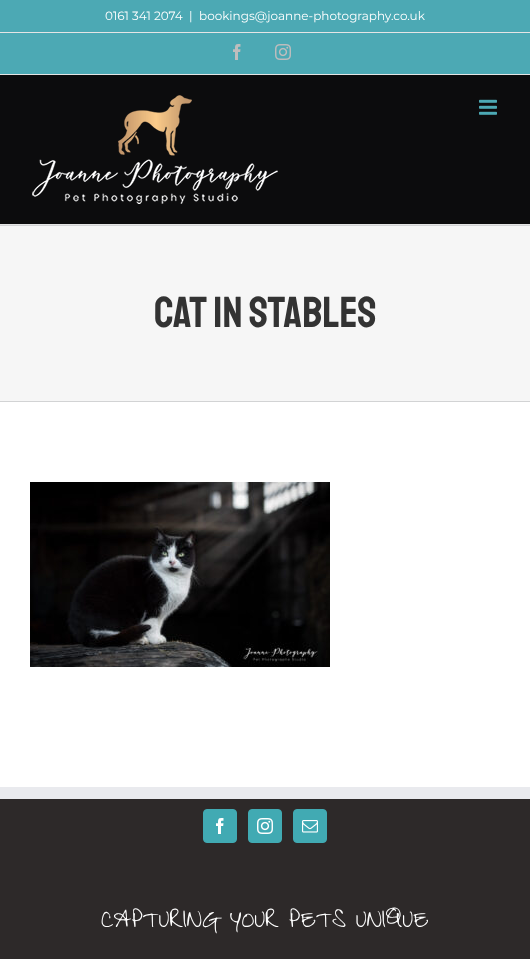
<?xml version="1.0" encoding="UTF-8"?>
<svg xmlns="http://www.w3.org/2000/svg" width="530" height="959">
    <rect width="100%" height="100%" fill="#FFFFFF"/>
    <rect x="0" y="0" width="530" height="74" fill="#4CA9B4"/>
    <rect x="0" y="74" width="530" height="1" fill="#E5E5E5"/>
    <rect x="0" y="32" width="530" height="1" fill="#E5E5E5"/>
    <text x="105" y="20" font-family="Montserrat" font-size="12" fill="#FFFFFF">0161 341 2074</text>
    <text x="189" y="20" font-family="Montserrat" font-size="12" fill="#FFFFFF">|</text>
    <text x="199" y="20" font-family="Montserrat" font-size="12" fill="#FFFFFF">bookings@joanne-photography.co.uk</text>
    <image x="233" y="44" width="8" height="16" href="img_01.png"/>
    <image x="275" y="44" width="16" height="16" href="img_02.png"/>
    <rect x="0" y="75" width="530" height="149" fill="#0C0C0D"/>
    <rect x="0" y="224" width="530" height="1" fill="#E5E5E5"/>
    <image x="32" y="95" width="246" height="109" href="img_03.png"/>
    <image x="479" y="99" width="18" height="16" href="img_04.png"/>
    <rect x="0" y="226" width="530" height="175" fill="#F6F6F6"/>
    <rect x="0" y="225" width="530" height="1" fill="#D2D3D4"/>
    <rect x="0" y="401" width="530" height="1" fill="#D2D3D4"/>
    <text x="154" y="327" font-family="Staatliches" font-size="43.5" fill="#333333">Cat in Stables</text>
    <image x="30" y="482" width="300" height="185" href="img_05.png"/>
    <rect x="0" y="799" width="530" height="160" fill="#2D2929"/>
    <rect x="0" y="787" width="530" height="12" fill="#E9EAEE"/>
    <rect x="203.5" y="809.5" width="33" height="33" rx="3.5" fill="#41AAB3" stroke="#41AAB3"/>
    <image x="216" y="818" width="8" height="16" href="img_06.png"/>
    <rect x="248.5" y="809.5" width="33" height="33" rx="3.5" fill="#41AAB3" stroke="#41AAB3"/>
    <image x="257" y="818" width="16" height="16" href="img_07.png"/>
    <rect x="293.5" y="809.5" width="33" height="33" rx="3.5" fill="#41AAB3" stroke="#41AAB3"/>
    <image x="302" y="820" width="16" height="13" href="img_08.png"/>
    <text x="101" y="927" font-family="Zeyada" font-size="27.5" fill="#FFFFFF">CAPTURING YOUR PETS UNIQUE</text>
</svg>
